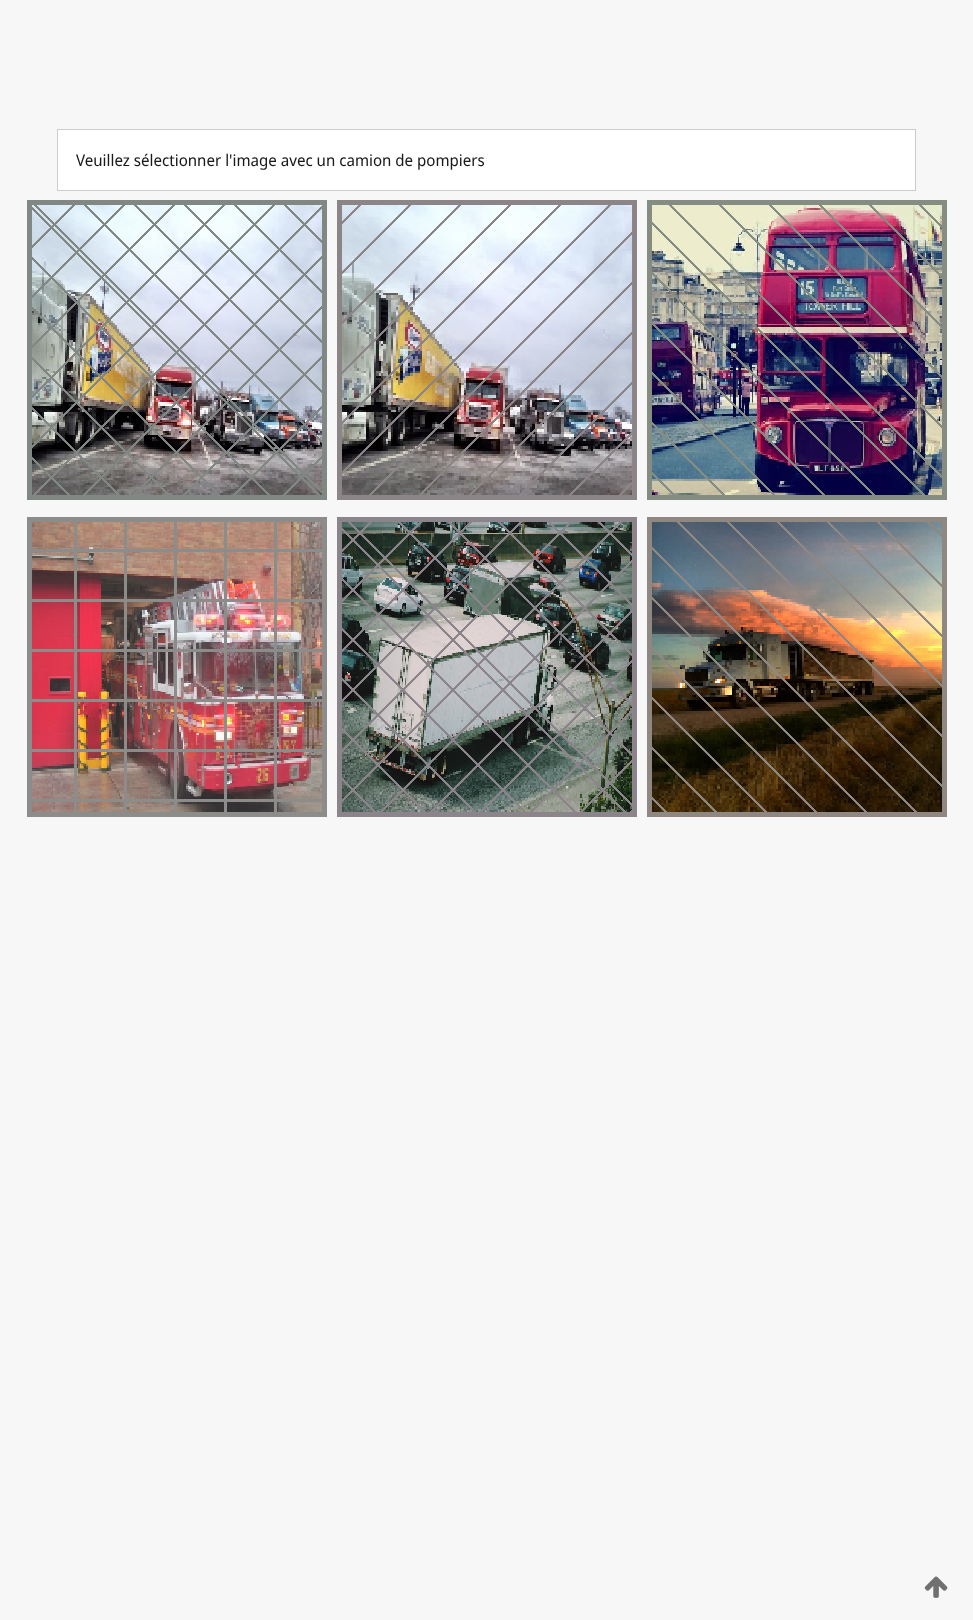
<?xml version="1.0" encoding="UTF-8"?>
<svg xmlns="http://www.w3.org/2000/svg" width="973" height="1620">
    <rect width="100%" height="100%" fill="#F7F7F7"/>
    <rect x="57.5" y="129.5" width="858" height="61" fill="#FFFFFF" stroke="#CCCCCC"/>
    <text x="76" y="166" font-family="Noto Sans Display" font-size="16" fill="#1A1A1A">Veuillez sélectionner l'image avec un camion de pompiers</text>
    <image x="27" y="200" width="300" height="300" href="img_01.png"/>
    <image x="337" y="200" width="300" height="300" href="img_02.png"/>
    <image x="647" y="200" width="300" height="300" href="img_03.png"/>
    <image x="27" y="517" width="300" height="300" href="img_04.png"/>
    <image x="337" y="517" width="300" height="300" href="img_05.png"/>
    <image x="647" y="517" width="300" height="300" href="img_06.png"/>
    <image x="924" y="1576" width="24" height="22" href="img_07.png"/>
</svg>
